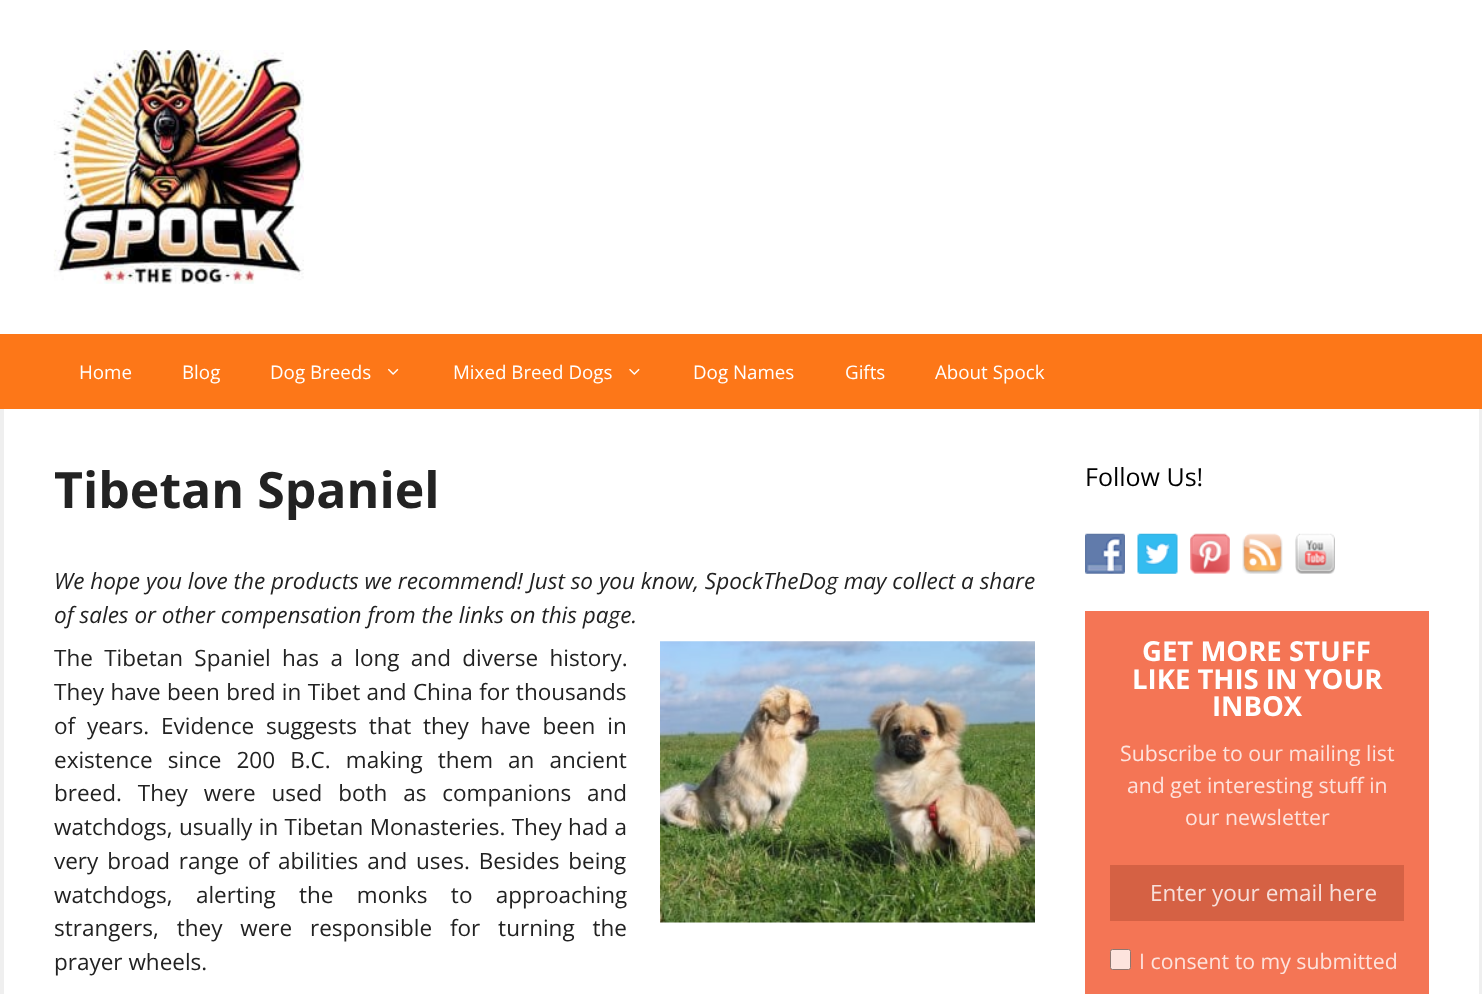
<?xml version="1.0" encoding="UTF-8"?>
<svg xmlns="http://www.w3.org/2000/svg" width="1482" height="994">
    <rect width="100%" height="100%" fill="#EFEFEF"/>
    <rect x="0" y="0" width="1482" height="334" fill="#FFFFFF"/>
    <image x="53" y="50" width="251" height="234" href="img_01.png"/>
    <rect x="0" y="334" width="1482" height="75" fill="#FD7718"/>
    <text x="79" y="379" font-family="Open Sans" font-size="18.75" fill="#FFFFFF">Home</text>
    <text x="182" y="379" font-family="Open Sans" font-size="18.75" fill="#FFFFFF">Blog</text>
    <text x="270" y="379" font-family="Open Sans" font-size="18.75" fill="#FFFFFF">Dog Breeds</text>
    <image x="388" y="368" width="11" height="7" href="img_02.png"/>
    <text x="453" y="379" font-family="Open Sans" font-size="18.75" fill="#FFFFFF">Mixed Breed Dogs</text>
    <image x="629" y="368" width="11" height="7" href="img_03.png"/>
    <text x="693" y="379" font-family="Open Sans" font-size="18.75" fill="#FFFFFF">Dog Names</text>
    <text x="845" y="379" font-family="Open Sans" font-size="18.75" fill="#FFFFFF">Gifts</text>
    <text x="935" y="379" font-family="Open Sans" font-size="18.75" fill="#FFFFFF">About Spock</text>
    <rect x="4" y="409" width="1475" height="585" fill="#FFFFFF"/>
    <text x="54" y="508" font-family="Open Sans" font-size="50" font-weight="700" fill="#222222">Tibetan Spaniel</text>
    <text font-family="Open Sans" font-size="22.5" font-style="italic" fill="#222222">
        <tspan x="54" y="589">We hope you love the products we recommend! Just so you know, SpockTheDog may collect a share</tspan>
        <tspan x="54" y="623">of sales or other compensation from the links on this page.</tspan>
    </text>
    <text x="54" y="666" word-spacing="5.5" font-family="Open Sans" font-size="22.5" fill="#222222">The Tibetan Spaniel has a long and diverse history.</text>
    <image x="660" y="641" width="375" height="282" href="img_04.png"/>
    <text font-family="Open Sans" font-size="22.5" fill="#222222">
        <tspan x="54" y="700" word-spacing="0.5">They have been bred in Tibet and China for thousands</tspan>
        <tspan x="54" y="734" word-spacing="6">of years. Evidence suggests that they have been in</tspan>
        <tspan x="54" y="768" word-spacing="9.25">existence since 200 B.C. making them an ancient</tspan>
        <tspan x="54" y="801" word-spacing="10">breed. They were used both as companions and</tspan>
        <tspan x="54" y="835" word-spacing="0.5">watchdogs, usually in Tibetan Monasteries. They had a</tspan>
        <tspan x="54" y="869" word-spacing="3">very broad range of abilities and uses. Besides being</tspan>
        <tspan x="54" y="903" word-spacing="17.5">watchdogs, alerting the monks to approaching</tspan>
        <tspan x="54" y="936" word-spacing="12">strangers, they were responsible for turning the</tspan>
        <tspan x="54" y="970">prayer wheels.</tspan>
    </text>
    <text x="1085" y="486" font-family="Open Sans" font-size="25" fill="#000000">Follow Us!</text>
    <image x="1085" y="533" width="40" height="41" href="img_05.png"/>
    <image x="1137" y="533" width="41" height="41" href="img_06.png"/>
    <image x="1190" y="533" width="40" height="41" href="img_07.png"/>
    <image x="1242" y="533" width="41" height="41" href="img_08.png"/>
    <image x="1295" y="533" width="40" height="41" href="img_09.png"/>
    <rect x="1085" y="611" width="344" height="383" fill="#F47555"/>
    <text x="1142" y="661" font-family="Open Sans" font-size="27.5" font-weight="700" fill="#FFFFFF">GET MORE STUFF</text>
    <text x="1132" y="689" font-family="Open Sans" font-size="27.5" font-weight="700" fill="#FFFFFF">LIKE THIS IN YOUR</text>
    <text x="1212" y="716" font-family="Open Sans" font-size="27.5" font-weight="700" fill="#FFFFFF">INBOX</text>
    <text x="1120" y="761" font-family="Open Sans" font-size="21.25" fill="#FDE3DD">Subscribe to our mailing list</text>
    <text x="1127" y="793" font-family="Open Sans" font-size="21.25" fill="#FDE3DD">and get interesting stuff in</text>
    <text x="1185" y="825" font-family="Open Sans" font-size="21.25" fill="#FDE3DD">our newsletter</text>
    <rect x="1110" y="865" width="294" height="56" fill="#D56144"/>
    <text x="1150" y="901" font-family="Open Sans" font-size="22.5" fill="#F7DFDA">Enter your email here</text>
    <rect x="1110.5" y="949.5" width="20" height="20" rx="2" fill="#FDE3DD" stroke="#8F766F"/>
    <text x="1139" y="969" font-family="Open Sans" font-size="21.25" fill="#FDE3DD">I consent to my submitted</text>
</svg>
